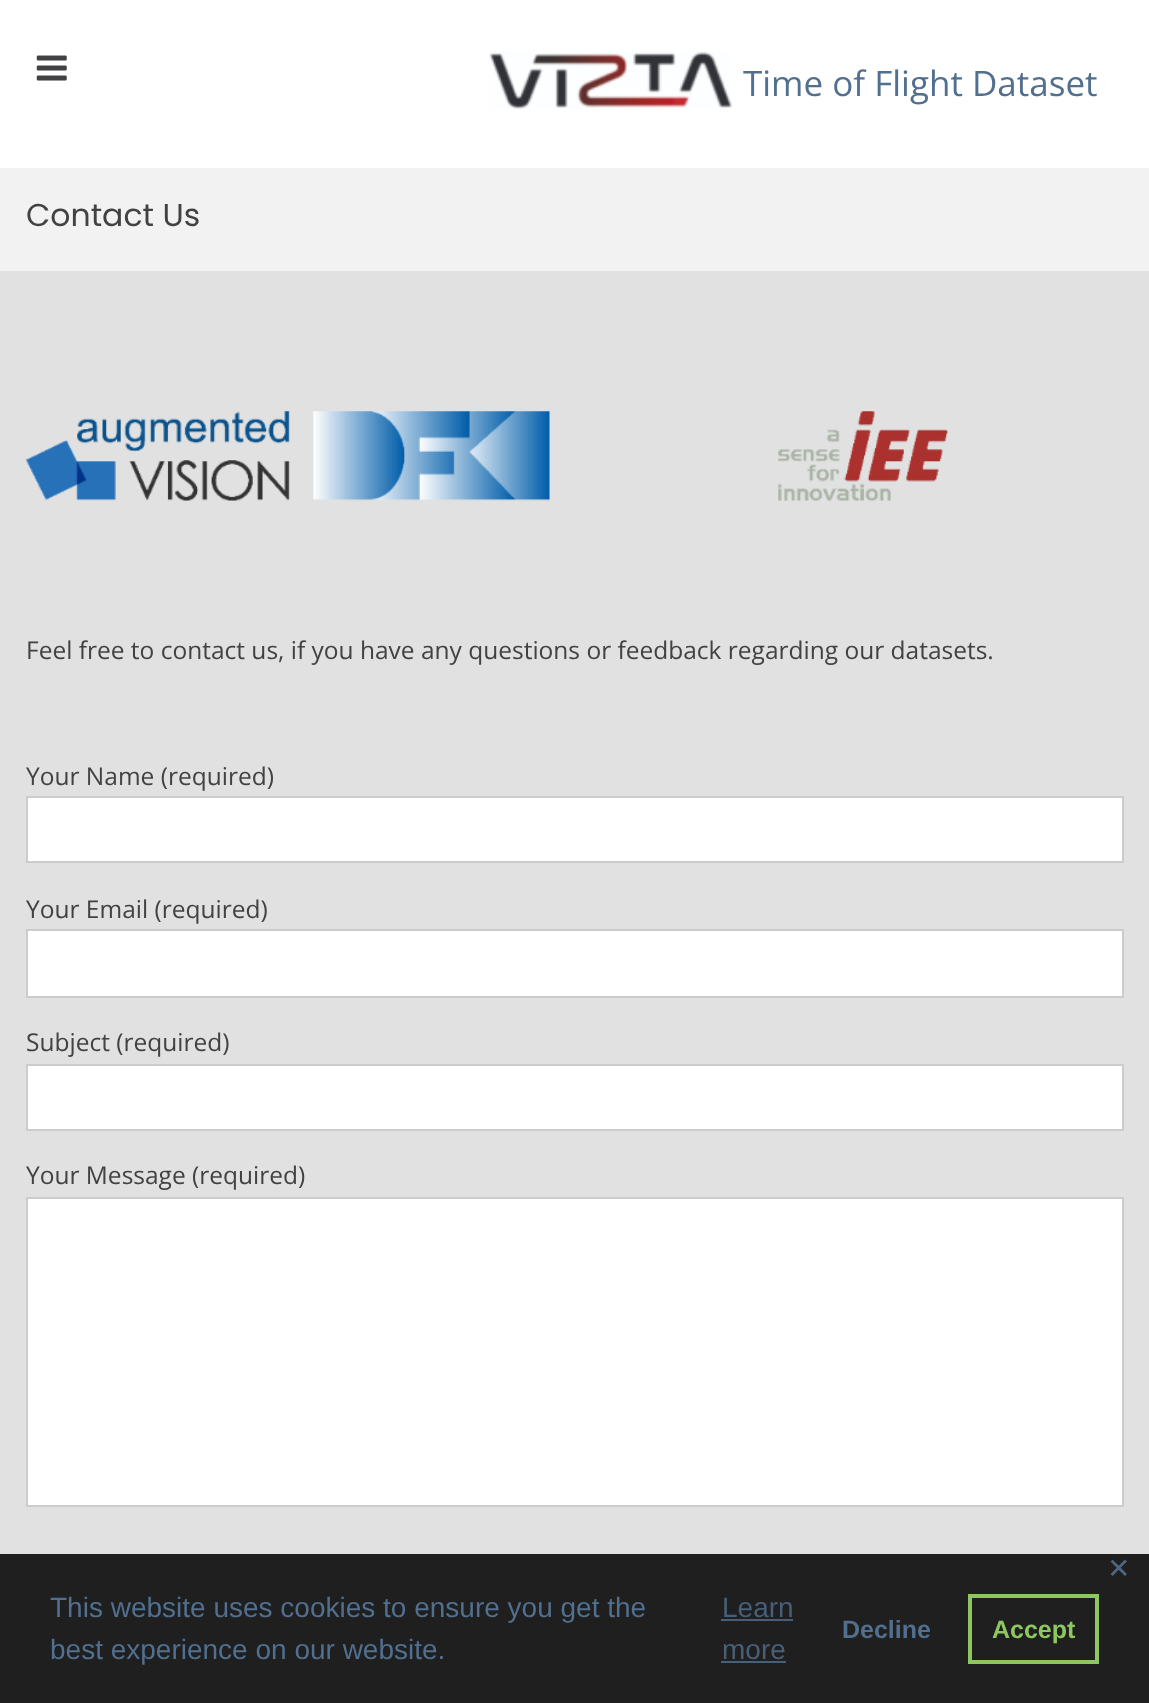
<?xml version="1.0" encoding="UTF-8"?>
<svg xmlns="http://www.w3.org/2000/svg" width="1149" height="1703">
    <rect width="100%" height="100%" fill="#E1E1E1"/>
    <rect x="0" y="0" width="1149" height="168" fill="#FFFFFF"/>
    <image x="36" y="55" width="31" height="26" href="img_01.png"/>
    <image x="489" y="51" width="243" height="58" href="img_02.png"/>
    <text x="743" y="96" font-family="Open Sans" font-size="35" fill="#516F8E">Time of Flight Dataset</text>
    <rect x="0" y="168" width="1149" height="103" fill="#F2F2F2"/>
    <text x="26" y="226" font-family="Poppins" font-size="31.5" fill="#424143">Contact Us</text>
    <image x="26" y="411" width="524" height="90" href="img_03.png"/>
    <image x="778" y="411" width="170" height="90" href="img_04.png"/>
    <text x="26" y="659" font-family="Open Sans" font-size="24.5" fill="#424143">Feel free to contact us, if you have any questions or feedback regarding our datasets.</text>
    <text x="26" y="785" font-family="Open Sans" font-size="24.5" fill="#424143">Your Name (required)</text>
    <rect x="27" y="797" width="1096" height="65" fill="#FFFFFF" stroke="#CCCCCC" stroke-width="2"/>
    <text x="26" y="918" font-family="Open Sans" font-size="24.5" fill="#424143">Your Email (required)</text>
    <rect x="27" y="930" width="1096" height="67" fill="#FFFFFF" stroke="#CCCCCC" stroke-width="2"/>
    <text x="26" y="1051" font-family="Open Sans" font-size="24.5" fill="#424143">Subject (required)</text>
    <rect x="27" y="1065" width="1096" height="65" fill="#FFFFFF" stroke="#CCCCCC" stroke-width="2"/>
    <text x="26" y="1184" font-family="Open Sans" font-size="24.5" fill="#424143">Your Message (required)</text>
    <rect x="27" y="1198" width="1096" height="308" fill="#FFFFFF" stroke="#CCCCCC" stroke-width="2"/>
    <rect x="0" y="1554" width="1149" height="149" fill="#1F1F1F"/>
    <text x="1107" y="1578" font-family="DejaVu Sans" font-size="28" fill="#4C6783">✕</text>
    <text font-family="Liberation Sans" font-size="28" fill="#516F8E">
        <tspan x="50" y="1617">This website uses cookies to ensure you get the</tspan>
        <tspan x="50" y="1659">best experience on our website.</tspan>
    </text>
    <text x="722" y="1617" font-family="Liberation Sans" font-size="28" fill="#475F78">Learn</text>
    <rect x="721" y="1619" width="72" height="2" fill="#475F78"/>
    <text x="722" y="1659" font-family="Liberation Sans" font-size="28" fill="#475F78">more</text>
    <rect x="721" y="1661" width="65" height="2" fill="#475F78"/>
    <text x="842" y="1638" font-family="Liberation Sans" font-size="25" font-weight="700" fill="#516F8E">Decline</text>
    <rect x="970" y="1596" width="127" height="66" fill="none" stroke="#8EC760" stroke-width="4"/>
    <text x="992" y="1638" font-family="Liberation Sans" font-size="25" font-weight="700" fill="#8EC760">Accept</text>
</svg>
